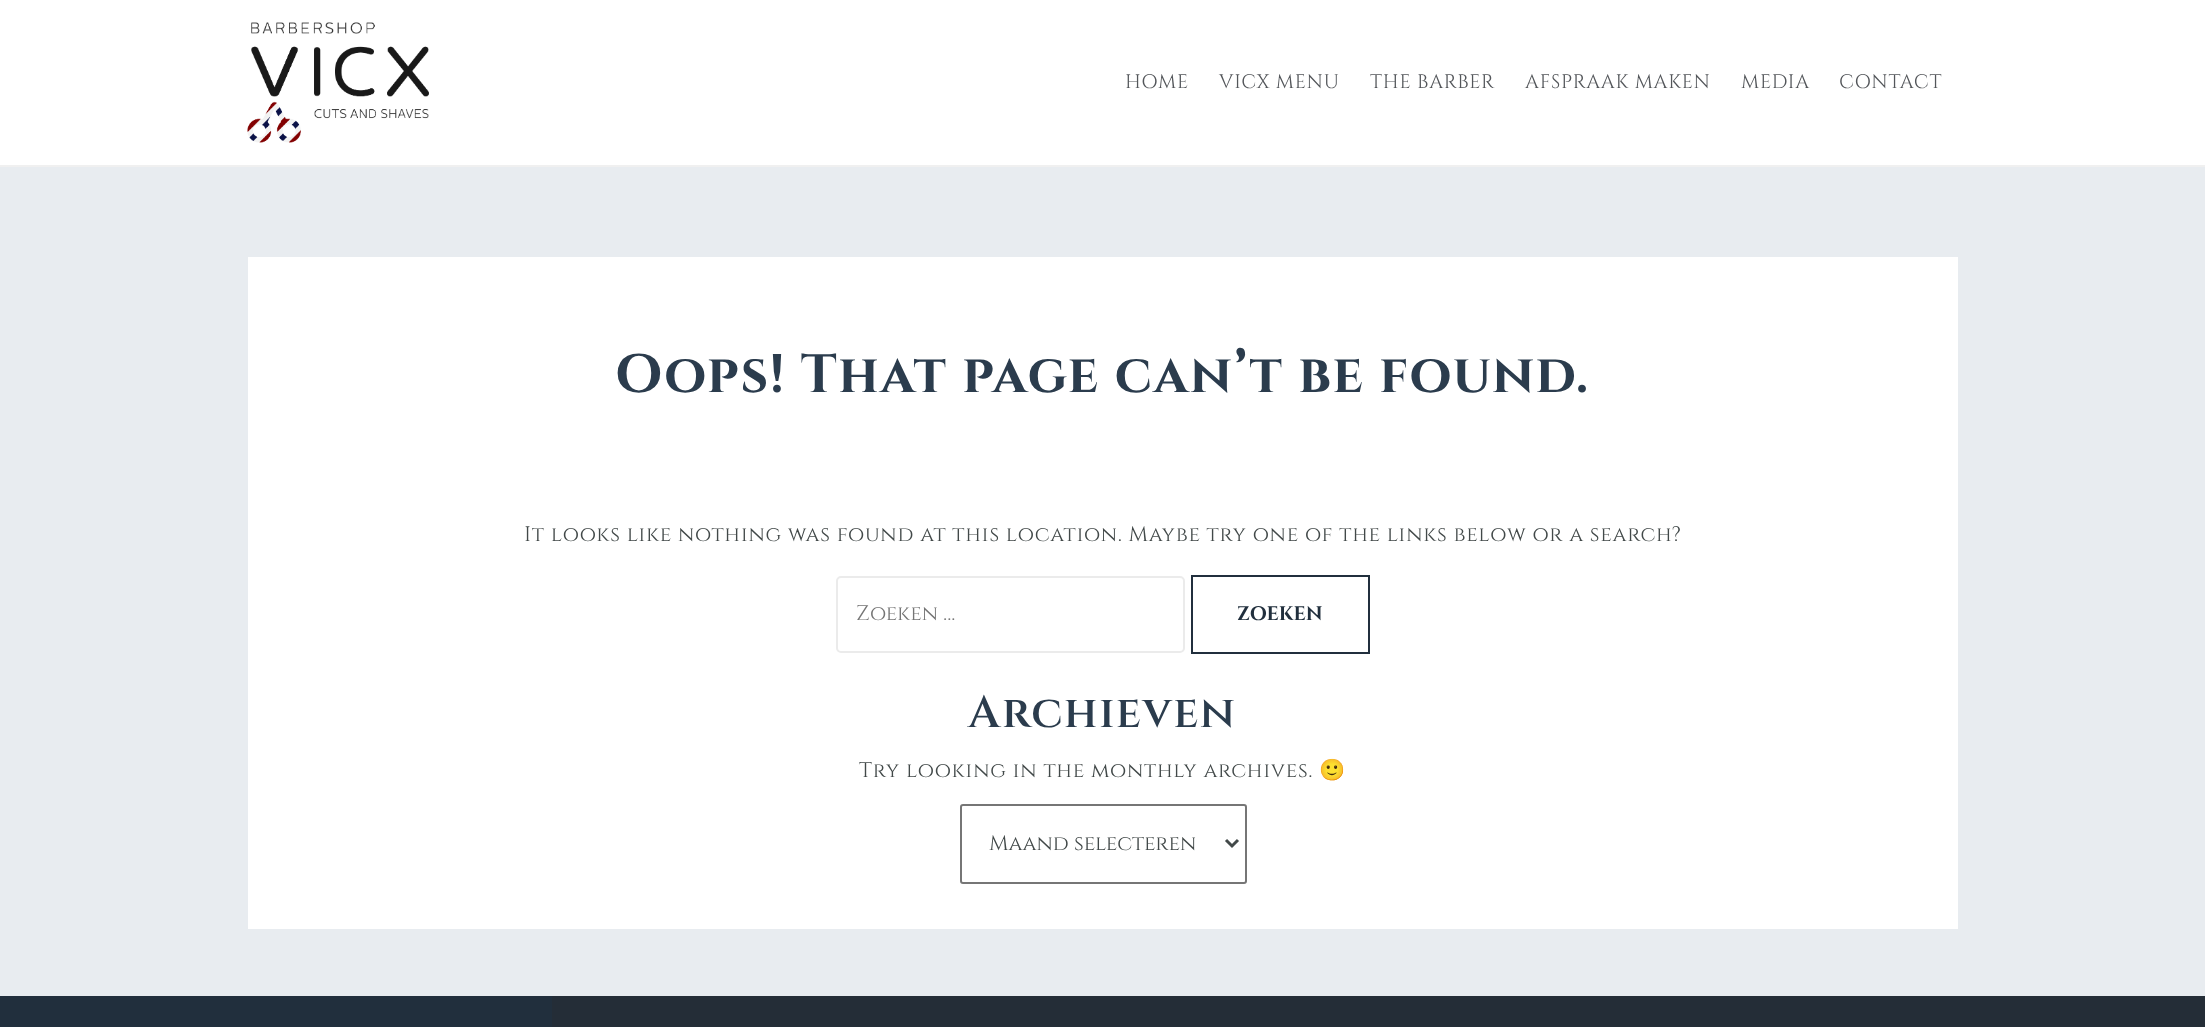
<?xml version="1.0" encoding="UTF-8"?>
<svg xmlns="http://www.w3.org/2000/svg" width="2205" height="1027">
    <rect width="100%" height="100%" fill="#E8ECF0"/>
    <rect x="0" y="0" width="2205" height="165" fill="#FFFFFF"/>
    <rect x="0" y="165" width="2205" height="2" fill="#F0F0F0"/>
    <image x="247" y="22" width="182" height="121" href="img_01.png"/>
    <text x="1125" y="88" font-family="Cinzel" font-size="19.5" letter-spacing="0.75" fill="#53565A">HOME</text>
    <text x="1219" y="88" font-family="Cinzel" font-size="19.5" letter-spacing="0.75" fill="#53565A">VICX MENU</text>
    <text x="1370" y="88" font-family="Cinzel" font-size="19.5" letter-spacing="0.75" fill="#53565A">THE BARBER</text>
    <text x="1525" y="88" font-family="Cinzel" font-size="19.5" letter-spacing="0.75" fill="#53565A">AFSPRAAK MAKEN</text>
    <text x="1741" y="88" font-family="Cinzel" font-size="19.5" letter-spacing="0.75" fill="#53565A">MEDIA</text>
    <text x="1839" y="88" font-family="Cinzel" font-size="19.5" letter-spacing="0.75" fill="#53565A">CONTACT</text>
    <rect x="248" y="257" width="1710" height="672" fill="#FFFFFF"/>
    <text x="615" y="392" font-family="Cinzel" font-size="54" font-weight="700" letter-spacing="1.5" fill="#2B3C4D">Oops! That page can’t be found.</text>
    <text x="524" y="541" font-family="Cinzel" font-size="21" letter-spacing="0.75" fill="#424949">It looks like nothing was found at this location. Maybe try one of the links below or a search?</text>
    <rect x="837" y="577" width="347" height="75" rx="4" fill="none" stroke="#EBEBEB" stroke-width="2"/>
    <text x="856" y="620" font-family="Cinzel" font-size="21" fill="#757575">Zoeken …</text>
    <rect x="1192" y="576" width="177" height="77" fill="none" stroke="#212F3D" stroke-width="2"/>
    <text x="1237" y="620" font-family="Cinzel" font-size="19.5" font-weight="700" fill="#212F3D">ZOEKEN</text>
    <text x="968" y="727" font-family="Cinzel" font-size="45" font-weight="600" letter-spacing="1.5" fill="#2B3C4D">Archieven</text>
    <text x="859" y="777" font-family="Cinzel" font-size="21" letter-spacing="0.75" fill="#424949">Try looking in the monthly archives.</text>
    <text x="1319" y="777" font-family="Noto Color Emoji" font-size="21" letter-spacing="0.75" fill="#424949">🙂</text>
    <rect x="961" y="805" width="285" height="78" rx="2" fill="none" stroke="#767676" stroke-width="2"/>
    <path d="M 1226 840 L 1232 846 L 1238 840" fill="none" stroke="#424949" stroke-width="3"/>
    <text x="989" y="850" font-family="Cinzel" font-size="21" fill="#424949">Maand selecteren</text>
    <rect x="0" y="996" width="552" height="31" fill="#212F3D"/>
    <rect x="552" y="996" width="1653" height="31" fill="#242D37"/>
</svg>
